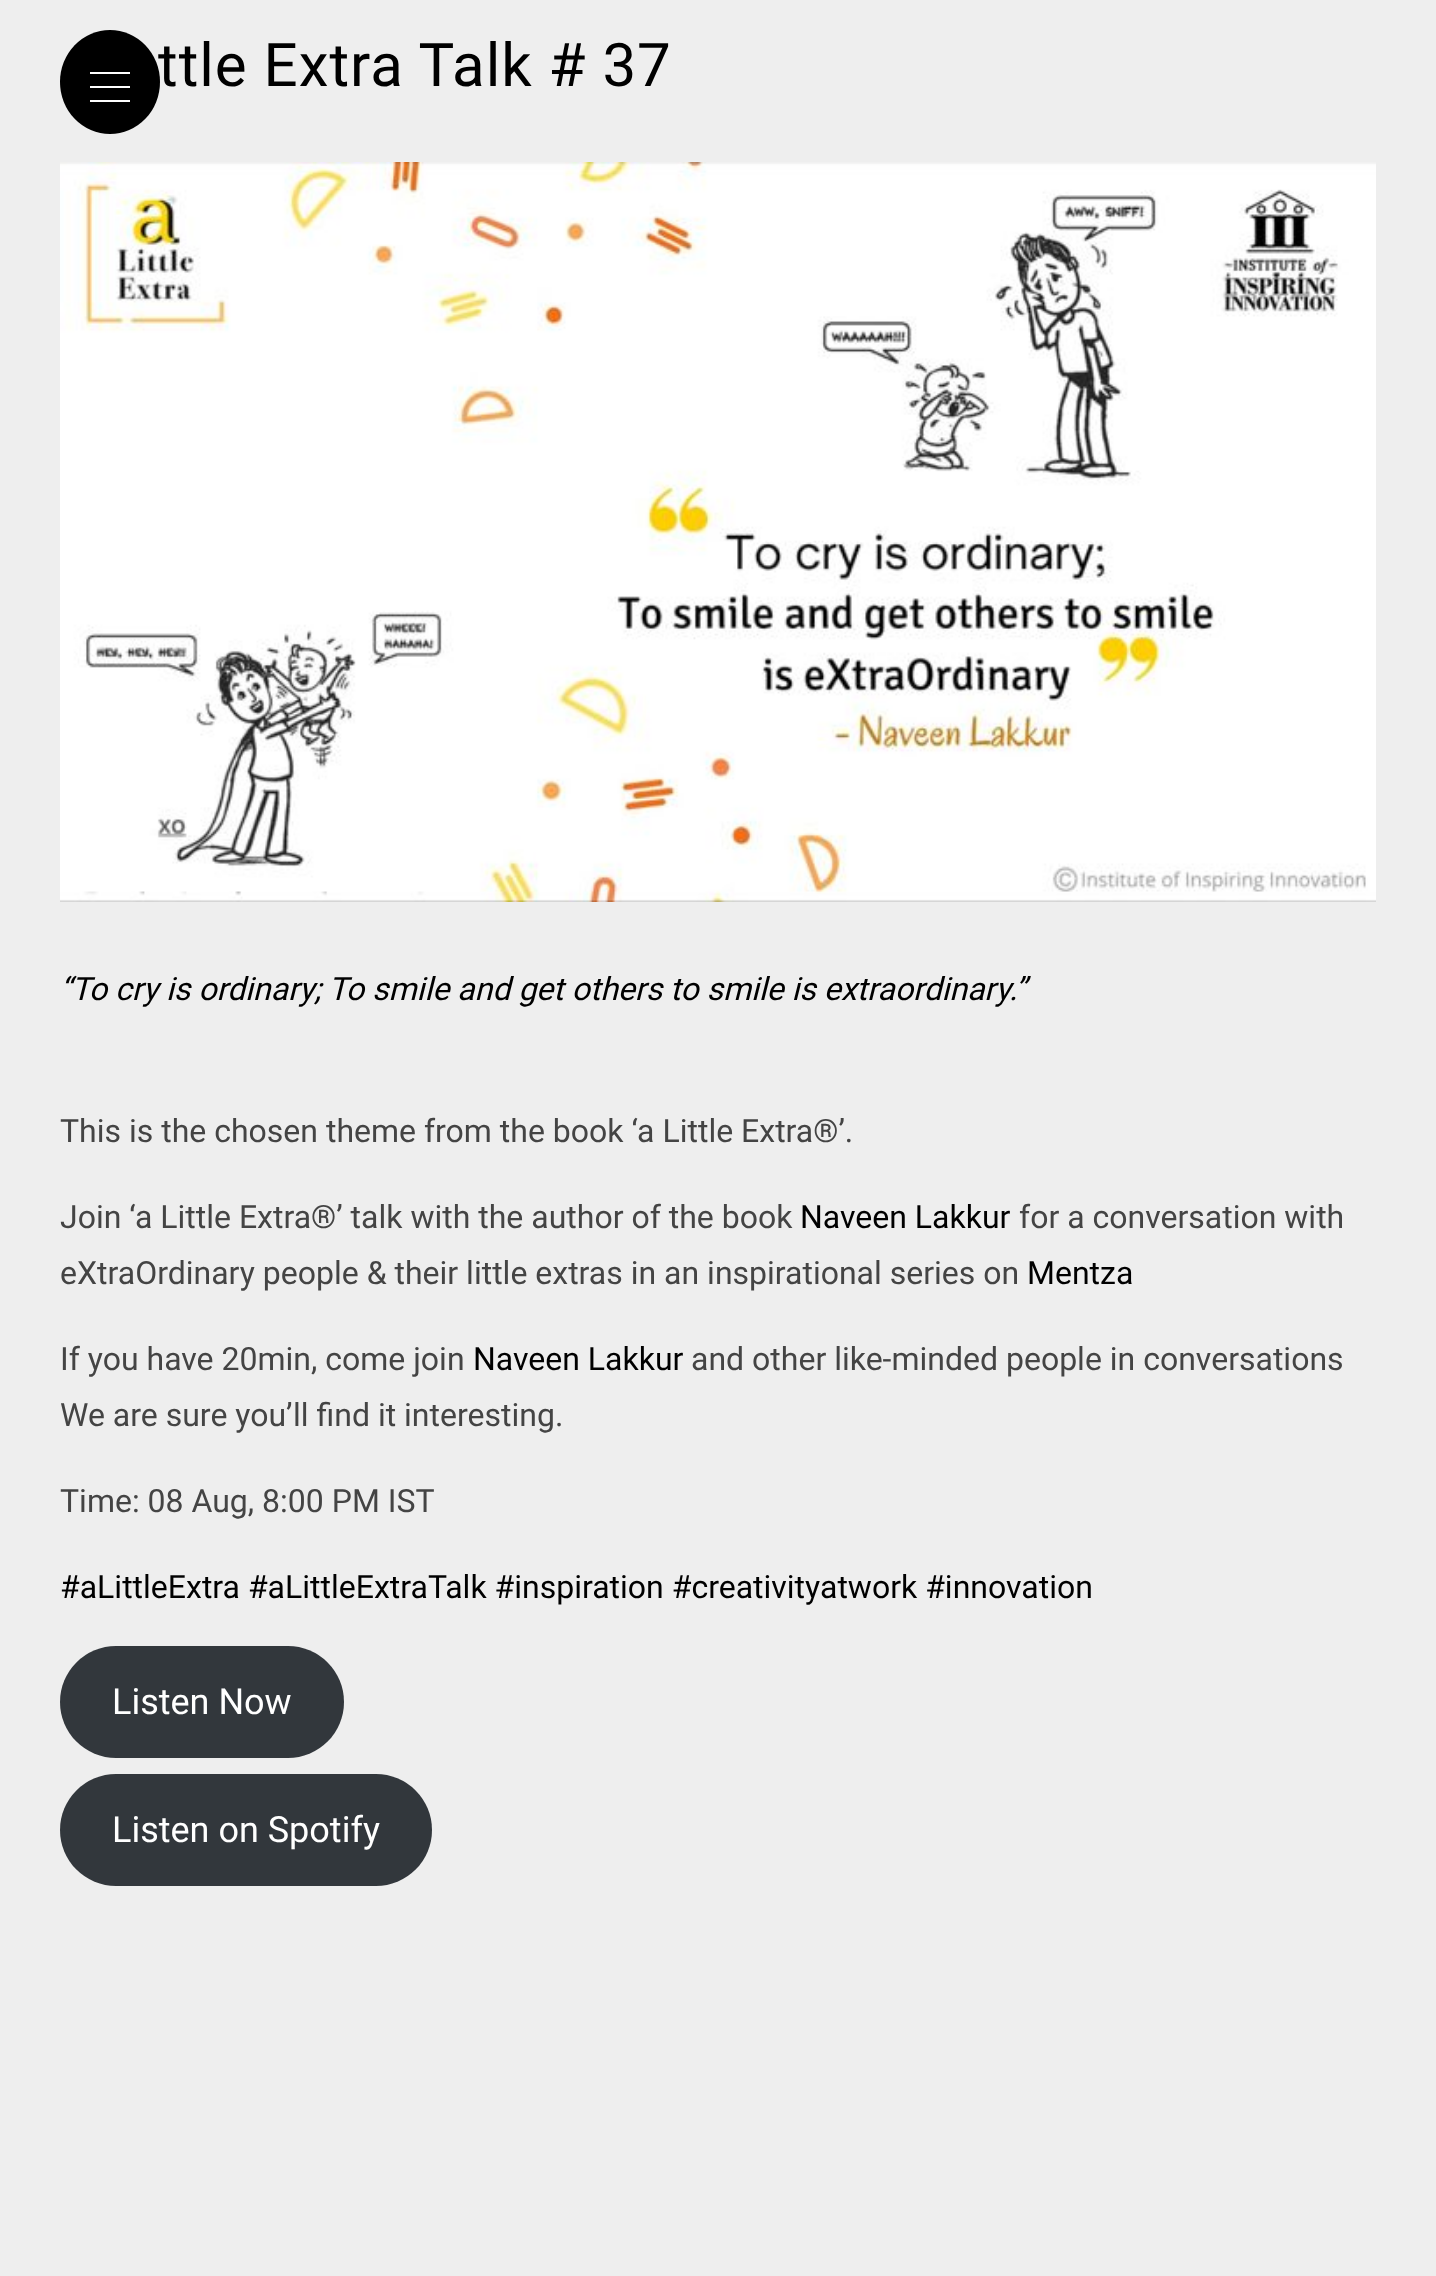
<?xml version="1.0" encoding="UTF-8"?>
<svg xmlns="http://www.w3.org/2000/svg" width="1436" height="2276">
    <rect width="100%" height="100%" fill="#EEEEEE"/>
    <ellipse cx="110" cy="82" rx="50" ry="52" fill="#000000"/>
    <rect x="90" y="86" width="40" height="2" fill="#FFFFFF"/>
    <rect x="90" y="72" width="40" height="2" fill="#FFFFFF"/>
    <rect x="90" y="100" width="40" height="2" fill="#FFFFFF"/>
    <text x="158" y="86" font-family="Roboto" font-size="60" letter-spacing="1" fill="#000000">ttle Extra Talk # 37</text>
    <image x="60" y="162" width="1316" height="740" href="img_01.png"/>
    <text x="60" y="1000" font-family="Roboto" font-size="32" font-style="italic" fill="#000000">“To cry is ordinary; To smile and get others to smile is extraordinary.”</text>
    <text x="60" y="1142" font-family="Roboto" font-size="32" fill="#444444">This is the chosen theme from the book ‘a Little Extra®’.</text>
    <text x="60" y="1228" font-family="Roboto" font-size="32" fill="#444444">Join ‘a Little Extra®’ talk with the author of the book</text>
    <text x="800" y="1228" font-family="Roboto" font-size="32" fill="#000000">Naveen Lakkur</text>
    <text x="1019" y="1228" font-family="Roboto" font-size="32" fill="#444444">for a conversation with</text>
    <text x="60" y="1284" font-family="Roboto" font-size="32" fill="#444444">eXtraOrdinary people &amp; their little extras in an inspirational series on</text>
    <text x="1027" y="1284" font-family="Roboto" font-size="32" fill="#000000">Mentza</text>
    <text x="60" y="1370" font-family="Roboto" font-size="32" fill="#444444">If you have 20min, come join</text>
    <text x="473" y="1370" font-family="Roboto" font-size="32" fill="#000000">Naveen Lakkur</text>
    <text x="691" y="1370" font-family="Roboto" font-size="32" fill="#444444">and other like-minded people in conversations</text>
    <text x="60" y="1426" font-family="Roboto" font-size="32" fill="#444444">We are sure you’ll find it interesting.</text>
    <text x="60" y="1512" font-family="Roboto" font-size="32" fill="#444444">Time: 08 Aug, 8:00 PM IST</text>
    <text x="60" y="1598" font-family="Roboto" font-size="32" fill="#000000">#aLittleExtra #aLittleExtraTalk #inspiration #creativityatwork #innovation</text>
    <rect x="60" y="1646" width="284" height="112" rx="56" fill="#32373C"/>
    <text x="112" y="1714" font-family="Roboto" font-size="36" fill="#FFFFFF">Listen Now</text>
    <rect x="60" y="1774" width="372" height="112" rx="56" fill="#32373C"/>
    <text x="112" y="1842" font-family="Roboto" font-size="36" fill="#FFFFFF">Listen on Spotify</text>
</svg>
